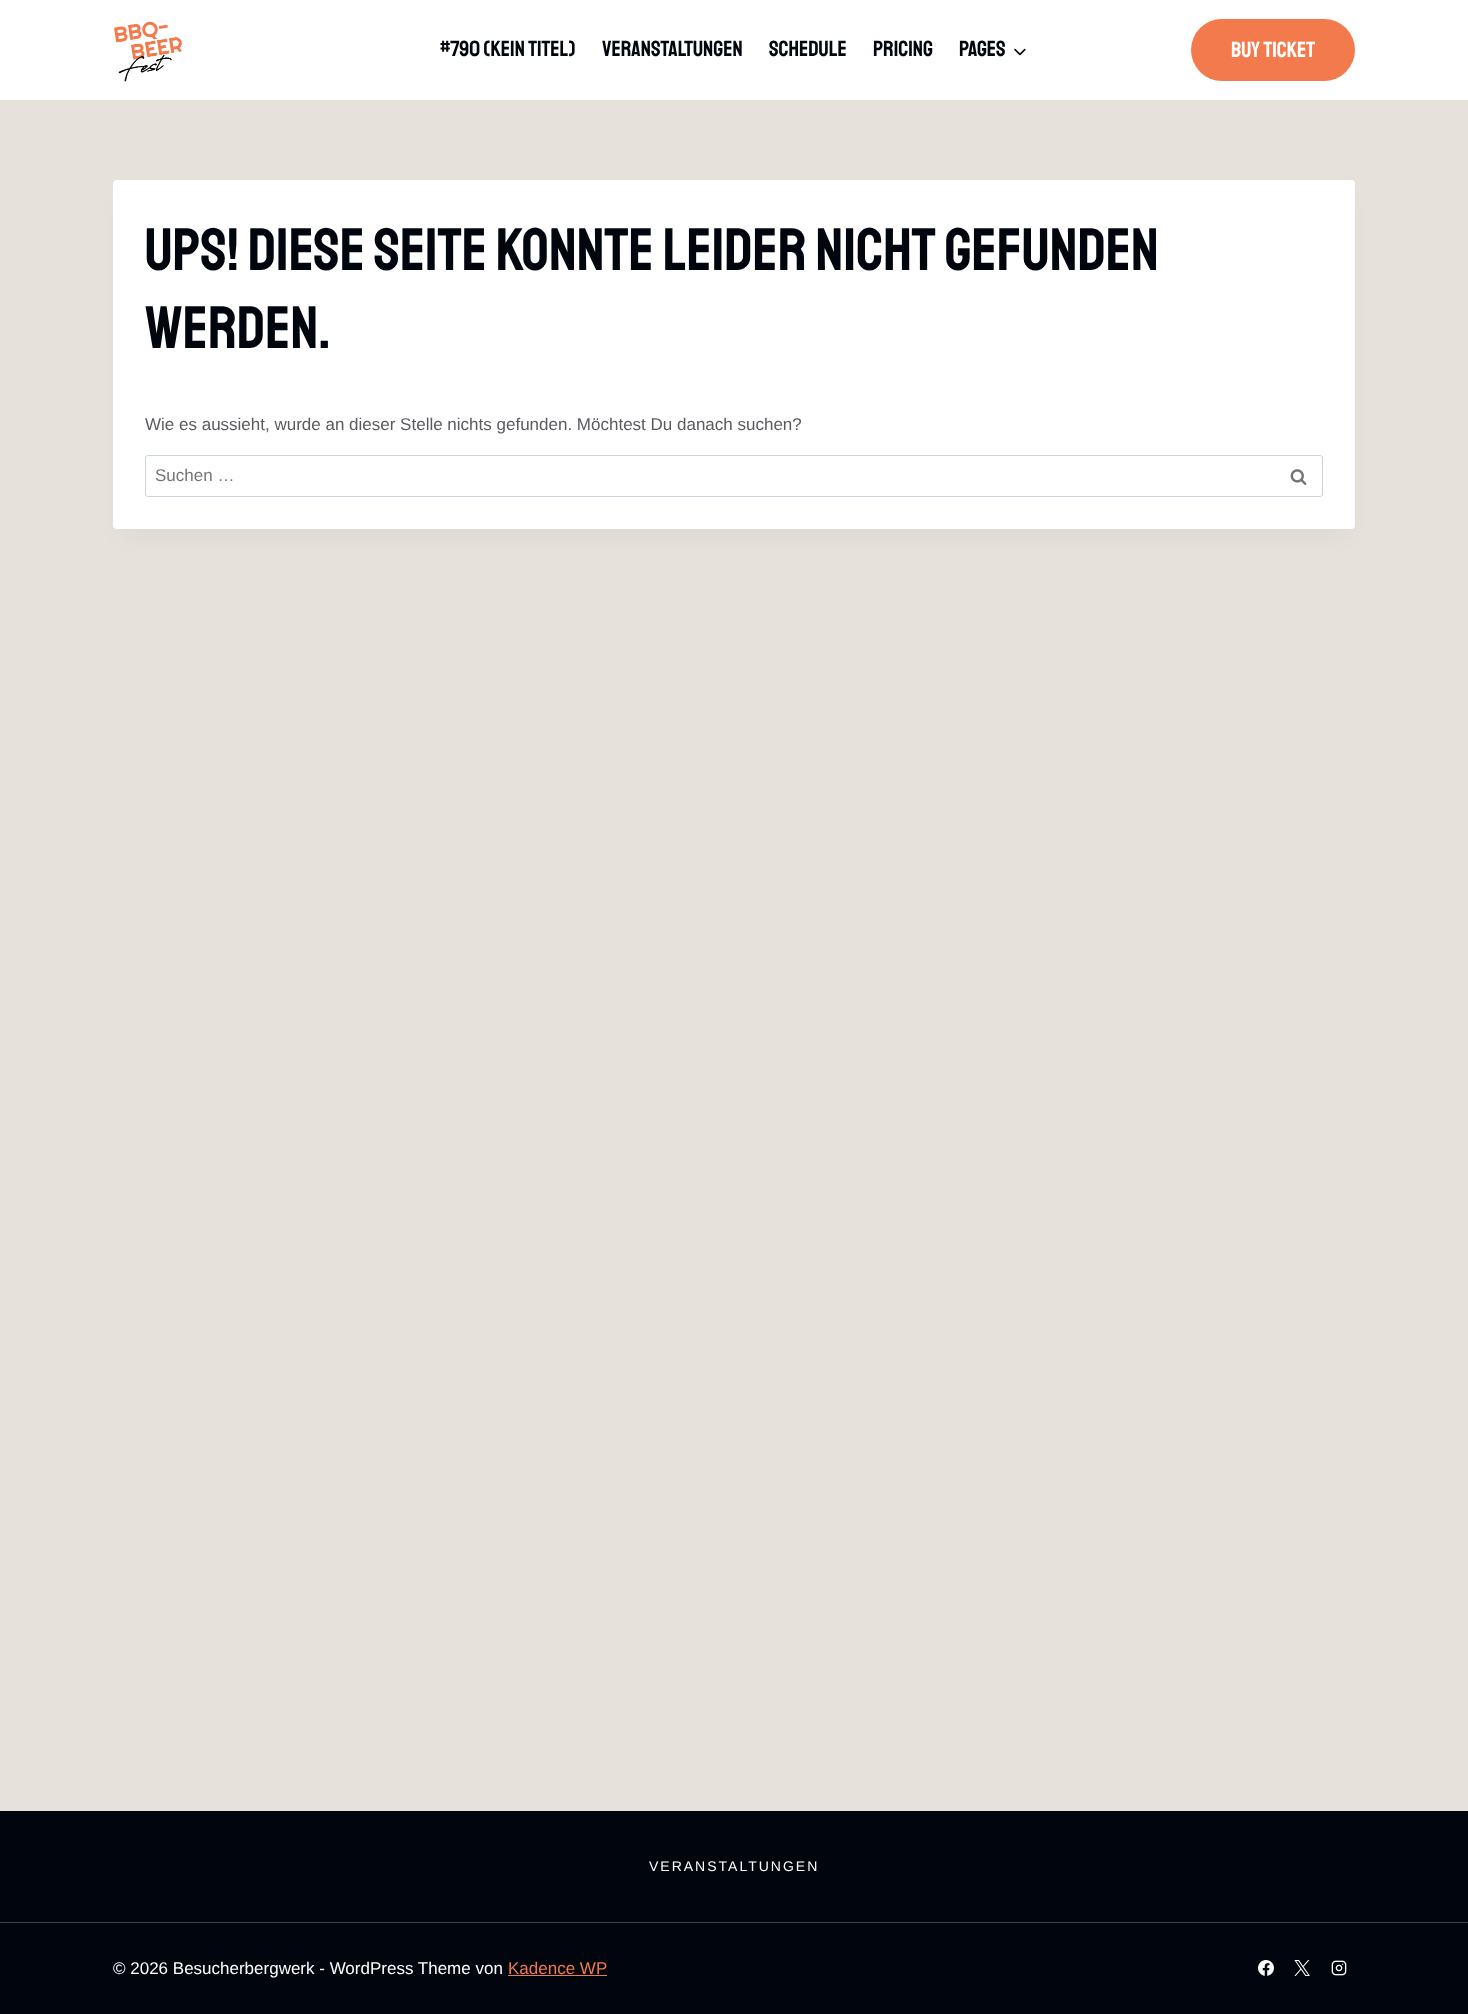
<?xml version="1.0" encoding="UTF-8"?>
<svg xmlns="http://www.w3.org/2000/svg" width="1468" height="2014">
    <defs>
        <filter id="blur1" x="-50%" y="-200%" width="200%" height="500%"><feGaussianBlur stdDeviation="12.5"/></filter>
    </defs>
    <rect width="100%" height="100%" fill="#E6E1DB"/>
    <rect x="0" y="0" width="1468" height="100" fill="#FFFFFF"/>
    <image x="114" y="21" width="68" height="61" href="img_01.png"/>
    <text x="440" y="56" font-family="Staatliches" font-size="22" fill="#01050E">#790 (KEIN TITEL)</text>
    <text x="602" y="56" font-family="Staatliches" font-size="22" fill="#01050E">VERANSTALTUNGEN</text>
    <text x="769" y="56" font-family="Staatliches" font-size="22" fill="#01050E">SCHEDULE</text>
    <text x="873" y="56" font-family="Staatliches" font-size="22" fill="#01050E">PRICING</text>
    <text x="959" y="56" font-family="Staatliches" font-size="22" fill="#01050E">PAGES</text>
    <image x="1014" y="48" width="12" height="8" href="img_02.png"/>
    <rect x="1191" y="19" width="164" height="62" rx="31" fill="#F27A4C"/>
    <text x="1231" y="57" font-family="Staatliches" font-size="22" fill="#FFFFFF">BUY TICKET</text>
    <rect x="123" y="205" width="1222" height="329" fill="#000000" fill-opacity="0.05" filter="url(#blur1)"/>
    <rect x="113" y="180" width="1242" height="349" rx="4" fill="#FFFFFF"/>
    <text font-family="Staatliches" font-size="60" fill="#01050E">
        <tspan x="145" y="270">Ups! Diese Seite Konnte Leider Nicht Gefunden</tspan>
        <tspan x="145" y="348">Werden.</tspan>
    </text>
    <text x="145" y="430" font-family="Liberation Sans" font-size="17" fill="#595B5F">Wie es aussieht, wurde an dieser Stelle nichts gefunden. Möchtest Du danach suchen?</text>
    <rect x="145.5" y="455.5" width="1177" height="41" rx="2.5" fill="none" stroke="#CBD5E0"/>
    <text x="155" y="481" font-family="Liberation Sans" font-size="17" fill="#747575">Suchen …</text>
    <image x="1290" y="469" width="17" height="16" href="img_03.png"/>
    <rect x="0" y="1811" width="1468" height="203" fill="#01050E"/>
    <text x="649" y="1871" font-family="Liberation Sans" font-size="14" letter-spacing="2" fill="#FFFFFF">VERANSTALTUNGEN</text>
    <rect x="0" y="1922" width="1468" height="1" fill="#3F4349"/>
    <text x="113" y="1974" font-family="Liberation Sans" font-size="17" fill="#FFFFFF">© 2026 Besucherbergwerk - WordPress Theme von</text>
    <text x="508" y="1974" font-family="Liberation Sans" font-size="17" fill="#F27A4C">Kadence WP</text>
    <rect x="508" y="1975" width="99" height="1" fill="#F27A4C"/>
    <image x="1258" y="1960" width="16" height="16" href="img_04.png"/>
    <image x="1294" y="1960" width="16" height="16" href="img_05.png"/>
    <image x="1331" y="1960" width="16" height="16" href="img_06.png"/>
</svg>
